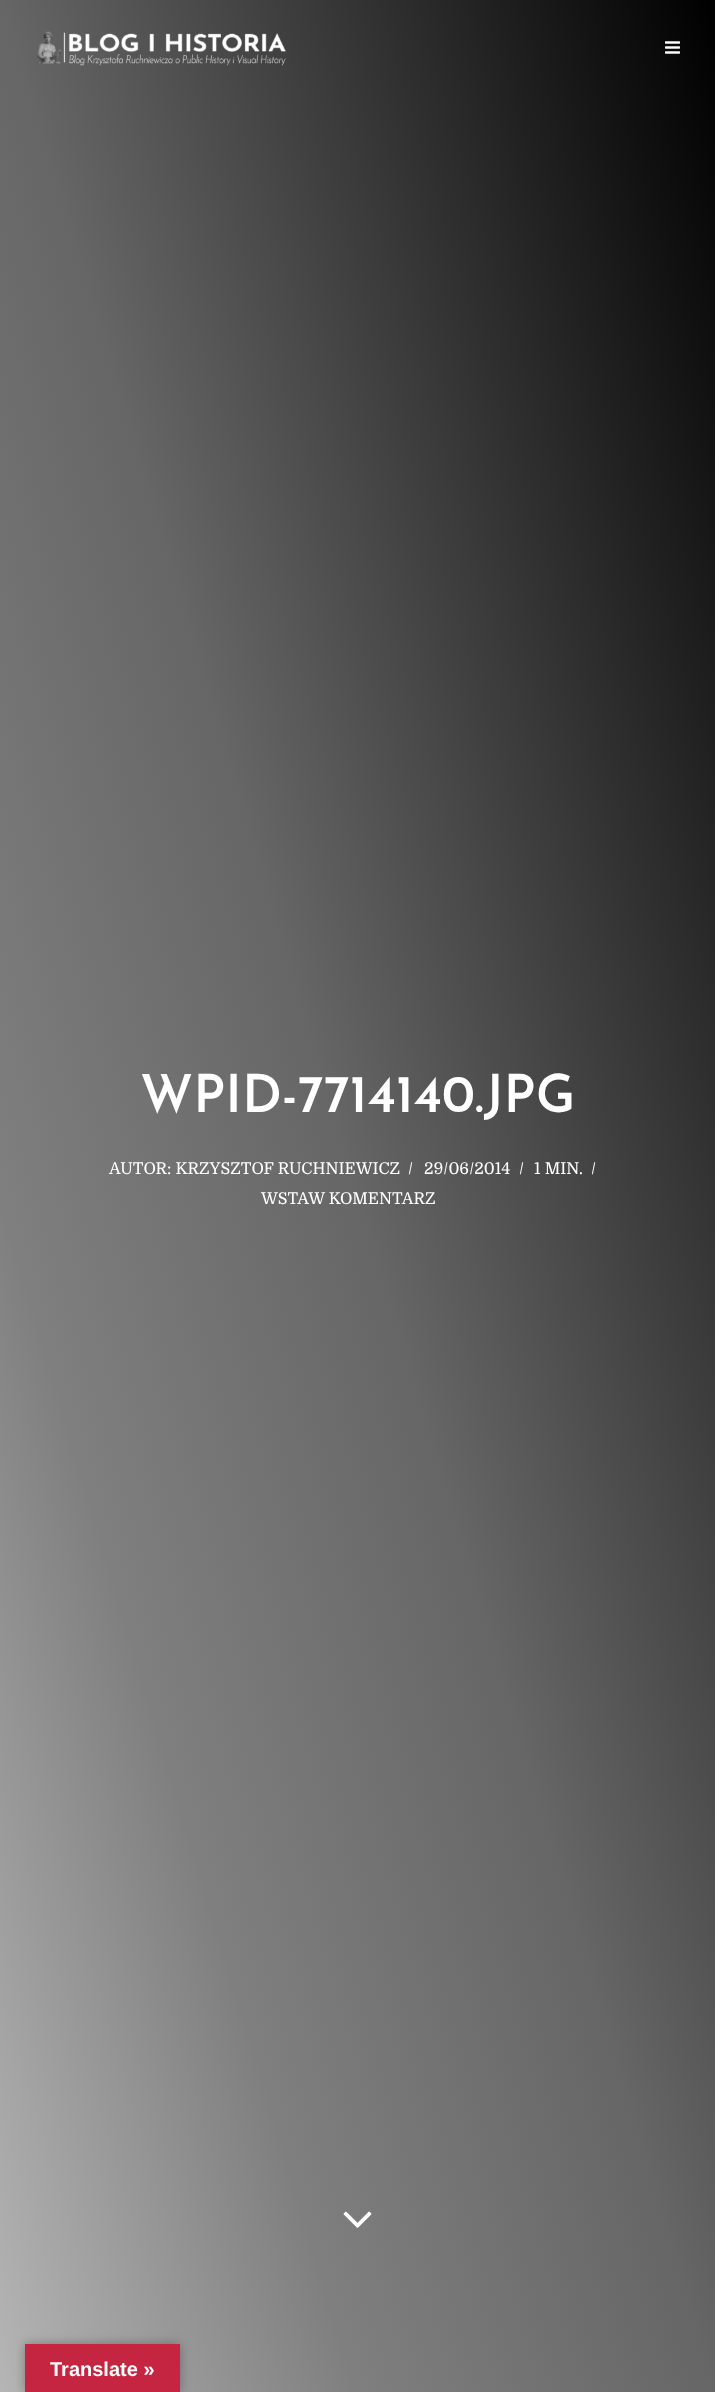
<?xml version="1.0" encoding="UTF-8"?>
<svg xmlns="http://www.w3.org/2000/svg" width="715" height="2392">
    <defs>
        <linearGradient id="g1" gradientUnits="userSpaceOnUse" x1="-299" y1="1392" x2="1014" y2="1000"><stop offset="0" stop-color="#B5B5B5"/><stop offset="0.25" stop-color="#7F7F7F"/><stop offset="0.5" stop-color="#666666"/><stop offset="0.75" stop-color="#333333"/><stop offset="1" stop-color="#000000"/></linearGradient>
        <filter id="blur1" x="-50%" y="-200%" width="200%" height="500%"><feGaussianBlur stdDeviation="5.5"/></filter>
    </defs>
    <rect width="100%" height="100%" fill="#FFFFFF"/>
    <rect x="0" y="0" width="715" height="2392" fill="url(#g1)"/>
    <image x="37" y="31" width="249" height="35" href="img_01.png"/>
    <image x="665" y="41" width="15" height="13" href="img_02.png"/>
    <text x="140" y="1112" font-family="Josefin Sans" font-size="52.5" font-weight="600" fill="#FFFFFF">WPID-7714140.JPG</text>
    <text x="109" y="1174" font-family="Domine" font-size="16.25" fill="#FFFFFF">AUTOR: KRZYSZTOF RUCHNIEWICZ</text>
    <text x="408" y="1174" font-family="Domine" font-size="16.25" fill="#FFFFFF">/</text>
    <text x="424" y="1174" font-family="Domine" font-size="16.25" fill="#FFFFFF">29/06/2014</text>
    <text x="519" y="1174" font-family="Domine" font-size="16.25" fill="#FFFFFF">/</text>
    <text x="534" y="1174" font-family="Domine" font-size="16.25" fill="#FFFFFF">1 MIN.</text>
    <text x="591" y="1174" font-family="Domine" font-size="16.25" fill="#FFFFFF">/</text>
    <text x="261" y="1204" font-family="Domine" font-size="16.25" fill="#FFFFFF">WSTAW KOMENTARZ</text>
    <image x="343" y="2211" width="29" height="17" href="img_03.png"/>
    <rect x="25" y="2344" width="155" height="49" fill="#000000" fill-opacity="0.3" filter="url(#blur1)"/>
    <rect x="25" y="2344" width="155" height="48" fill="#C62541"/>
    <text x="50" y="2376" font-family="Liberation Sans" font-size="20" font-weight="700" fill="#FFFFFF">Translate »</text>
</svg>
